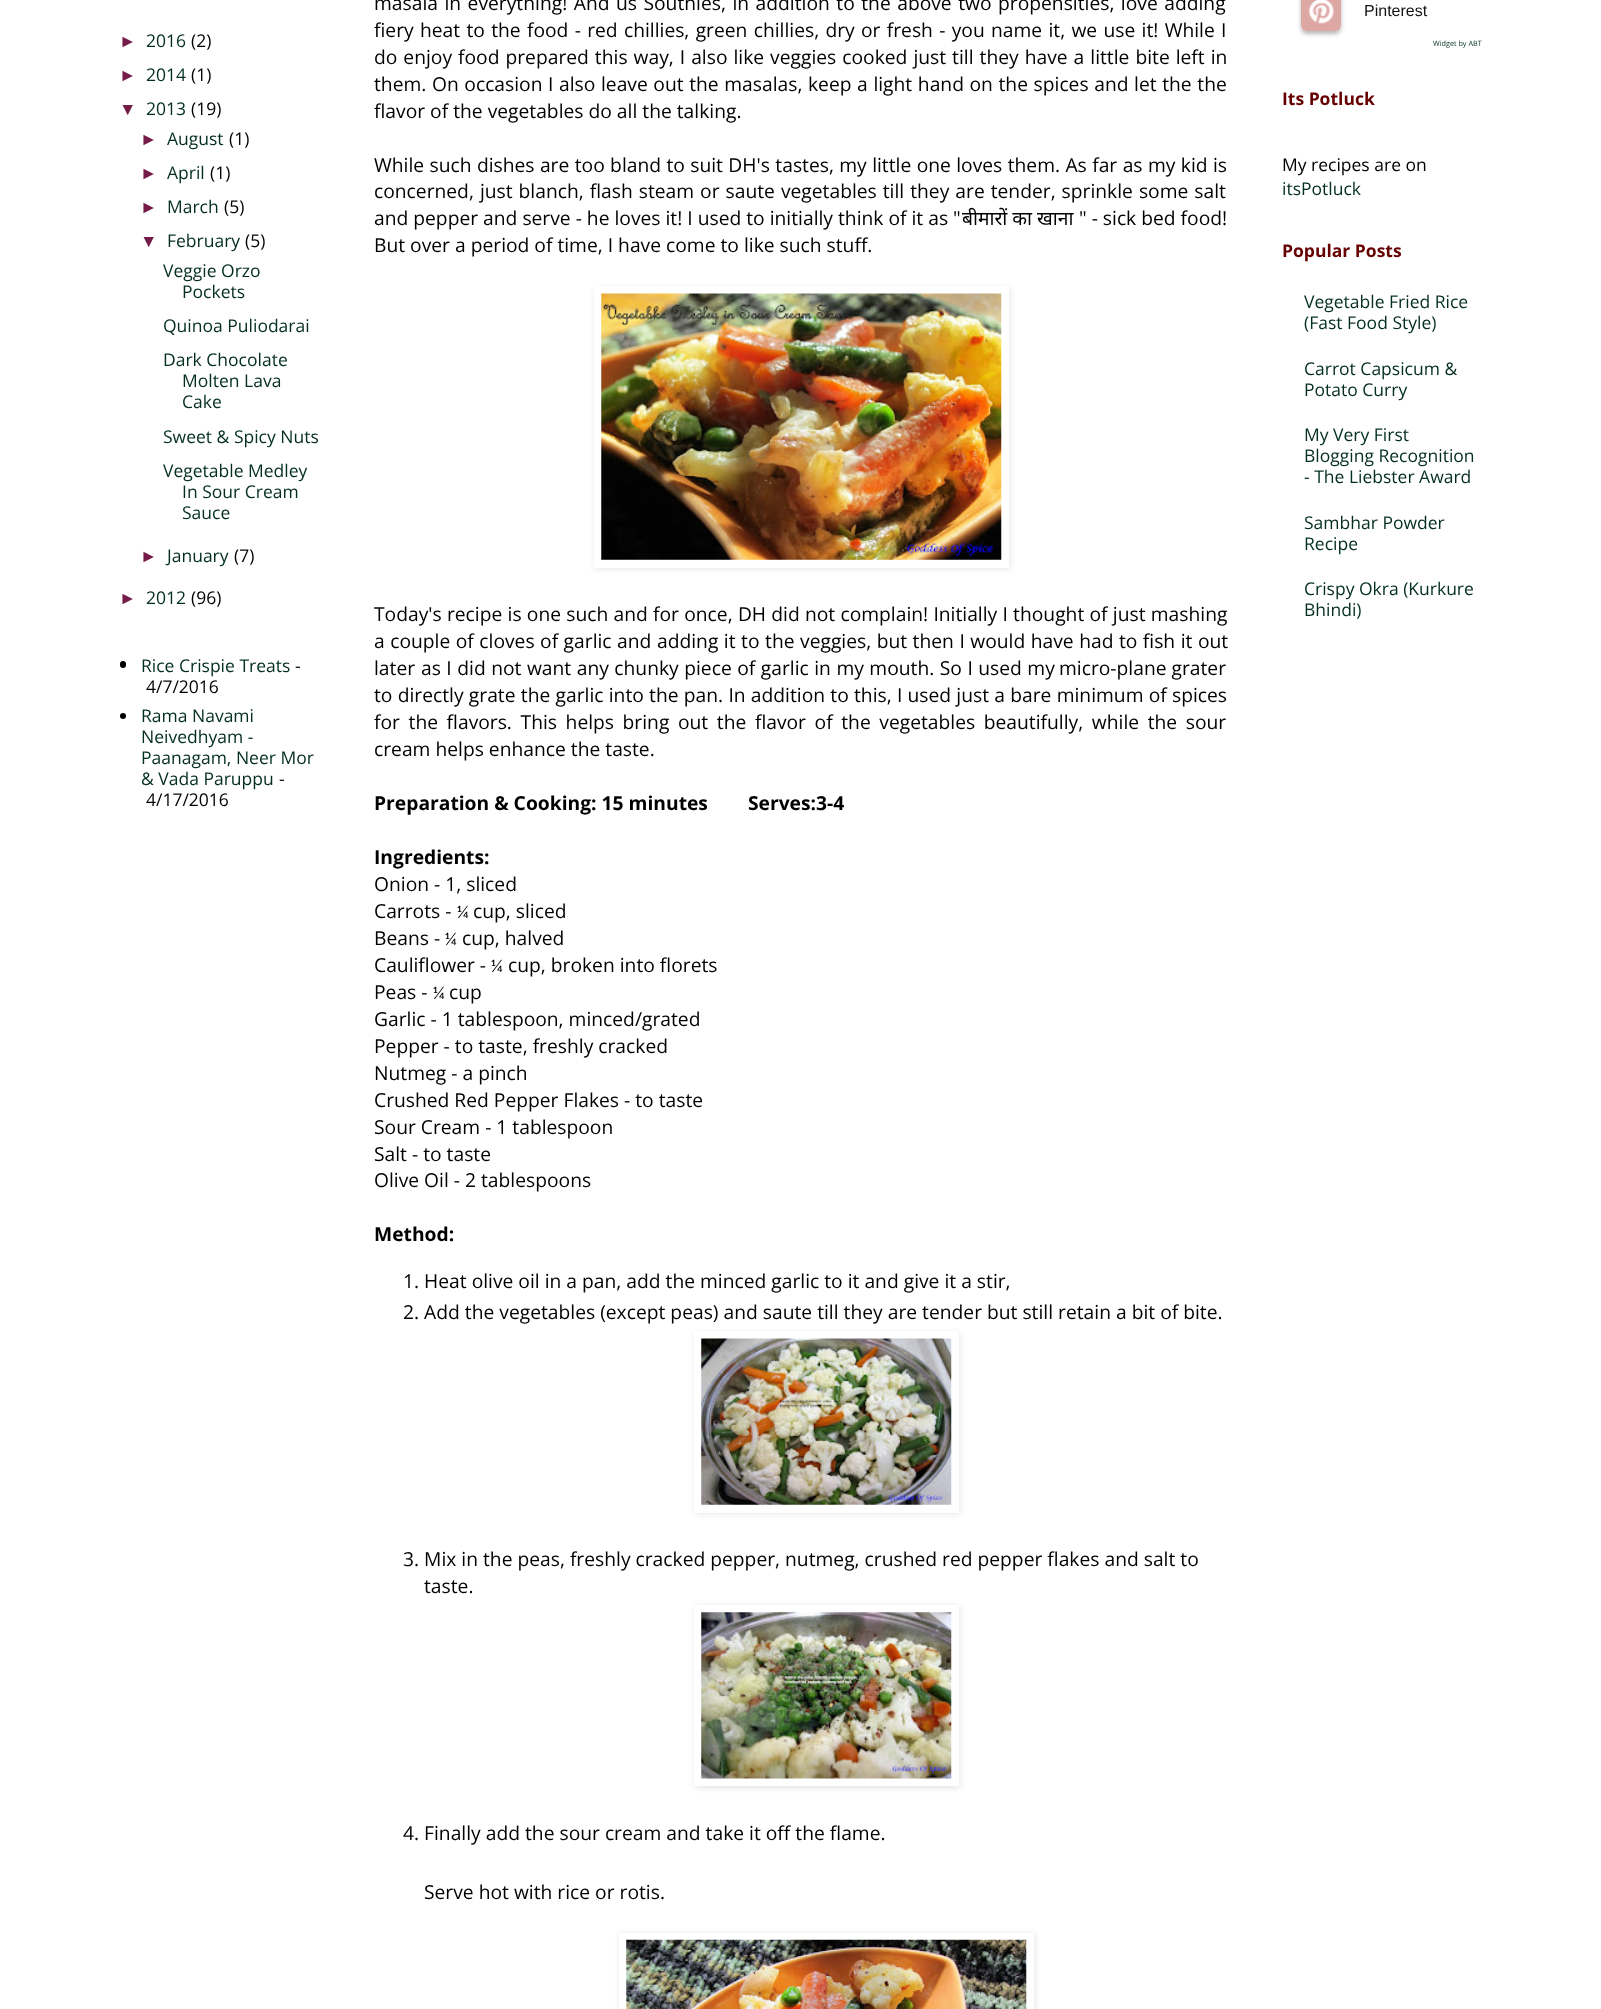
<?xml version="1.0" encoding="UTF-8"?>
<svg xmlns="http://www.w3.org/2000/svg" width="1601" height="2009">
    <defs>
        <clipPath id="clip1"><path d="M 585 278 H 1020 V 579 H 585 Z M 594 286 H 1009 V 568 H 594 Z" clip-rule="evenodd"/></clipPath>
        <filter id="blur1" x="-50%" y="-200%" width="200%" height="500%"><feGaussianBlur stdDeviation="3"/></filter>
        <clipPath id="clip2"><path d="M 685 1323 H 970 V 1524 H 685 Z M 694 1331 H 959 V 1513 H 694 Z" clip-rule="evenodd"/></clipPath>
        <clipPath id="clip3"><path d="M 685 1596 H 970 V 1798 H 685 Z M 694 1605 H 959 V 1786 H 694 Z" clip-rule="evenodd"/></clipPath>
        <clipPath id="clip4"><path d="M 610 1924 H 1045 V 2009 H 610 Z M 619 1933 H 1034 V 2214 H 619 Z" clip-rule="evenodd"/></clipPath>
        <clipPath id="clip5"><path d="M 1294 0 H 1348 V 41 H 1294 Z M 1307 -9 H 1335 C 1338.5 -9 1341 -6.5 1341 -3 V 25 C 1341 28.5 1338.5 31 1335 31 H 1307 C 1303.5 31 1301 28.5 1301 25 V -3 C 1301 -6.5 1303.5 -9 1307 -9 Z" clip-rule="evenodd"/></clipPath>
        <filter id="blur2" x="-50%" y="-200%" width="200%" height="500%"><feGaussianBlur stdDeviation="2"/></filter>
    </defs>
    <rect width="100%" height="100%" fill="#FFFFFF"/>
    <text x="119" y="47" font-family="Liberation Sans" font-size="17.5" fill="#741B47">►</text>
    <text x="146" y="47" font-family="Open Sans" font-size="17.5" fill="#032E20">2016</text>
    <text x="191" y="47" font-family="Open Sans" font-size="17.5" fill="#000000">(2)</text>
    <text x="119" y="81" font-family="Liberation Sans" font-size="17.5" fill="#741B47">►</text>
    <text x="146" y="81" font-family="Open Sans" font-size="17.5" fill="#032E20">2014</text>
    <text x="191" y="81" font-family="Open Sans" font-size="17.5" fill="#000000">(1)</text>
    <text x="119" y="115" font-family="Liberation Sans" font-size="17.5" fill="#741B47">▼</text>
    <text x="146" y="115" font-family="Open Sans" font-size="17.5" fill="#032E20">2013</text>
    <text x="191" y="115" font-family="Open Sans" font-size="17.5" fill="#000000">(19)</text>
    <text x="140" y="145" font-family="Liberation Sans" font-size="17.5" fill="#741B47">►</text>
    <text x="167" y="145" font-family="Open Sans" font-size="17.5" fill="#032E20">August</text>
    <text x="229" y="145" font-family="Open Sans" font-size="17.5" fill="#000000">(1)</text>
    <text x="140" y="179" font-family="Liberation Sans" font-size="17.5" fill="#741B47">►</text>
    <text x="167" y="179" font-family="Open Sans" font-size="17.5" fill="#032E20">April</text>
    <text x="210" y="179" font-family="Open Sans" font-size="17.5" fill="#000000">(1)</text>
    <text x="140" y="213" font-family="Liberation Sans" font-size="17.5" fill="#741B47">►</text>
    <text x="167" y="213" font-family="Open Sans" font-size="17.5" fill="#032E20">March</text>
    <text x="224" y="213" font-family="Open Sans" font-size="17.5" fill="#000000">(5)</text>
    <text x="140" y="247" font-family="Liberation Sans" font-size="17.5" fill="#741B47">▼</text>
    <text x="167" y="247" font-family="Open Sans" font-size="17.5" fill="#032E20">February</text>
    <text x="245" y="247" font-family="Open Sans" font-size="17.5" fill="#000000">(5)</text>
    <text x="163" y="277" font-family="Open Sans" font-size="17.5" fill="#032E20">Veggie Orzo</text>
    <text x="182" y="298" font-family="Open Sans" font-size="17.5" fill="#032E20">Pockets</text>
    <text font-family="Open Sans" font-size="17.5" fill="#032E20">
        <tspan x="163" y="332">Quinoa Puliodarai</tspan>
        <tspan x="163" y="366">Dark Chocolate</tspan>
    </text>
    <text font-family="Open Sans" font-size="17.5" fill="#032E20">
        <tspan x="182" y="387">Molten Lava</tspan>
        <tspan x="182" y="408">Cake</tspan>
    </text>
    <text font-family="Open Sans" font-size="17.5" fill="#032E20">
        <tspan x="163" y="443">Sweet &amp; Spicy Nuts</tspan>
        <tspan x="163" y="477">Vegetable Medley</tspan>
    </text>
    <text font-family="Open Sans" font-size="17.5" fill="#032E20">
        <tspan x="182" y="498">In Sour Cream</tspan>
        <tspan x="182" y="519">Sauce</tspan>
    </text>
    <text x="140" y="562" font-family="Liberation Sans" font-size="17.5" fill="#741B47">►</text>
    <text x="167" y="562" font-family="Open Sans" font-size="17.5" fill="#032E20">January</text>
    <text x="234" y="562" font-family="Open Sans" font-size="17.5" fill="#000000">(7)</text>
    <text x="119" y="604" font-family="Liberation Sans" font-size="17.5" fill="#741B47">►</text>
    <text x="146" y="604" font-family="Open Sans" font-size="17.5" fill="#032E20">2012</text>
    <text x="191" y="604" font-family="Open Sans" font-size="17.5" fill="#000000">(96)</text>
    <rect x="120" y="661" width="6" height="7" rx="3" fill="#000000"/>
    <text x="141" y="672" font-family="Open Sans" font-size="17.5" fill="#032E20">Rice Crispie Treats</text>
    <text x="295" y="672" font-family="Open Sans" font-size="17.5" fill="#000000">-</text>
    <text x="146" y="693" font-family="Open Sans" font-size="17.5" fill="#000000">4/7/2016</text>
    <circle cx="123" cy="716" r="3" fill="#000000"/>
    <text font-family="Open Sans" font-size="17.5" fill="#032E20">
        <tspan x="141" y="722">Rama Navami</tspan>
        <tspan x="141" y="743">Neivedhyam -</tspan>
        <tspan x="141" y="764">Paanagam, Neer Mor</tspan>
        <tspan x="141" y="785">&amp; Vada Paruppu</tspan>
    </text>
    <text x="279" y="785" font-family="Open Sans" font-size="17.5" fill="#000000">-</text>
    <text x="146" y="806" font-family="Open Sans" font-size="17.5" fill="#000000">4/17/2016</text>
    <text font-family="Open Sans" font-size="19.25" fill="#000000">
        <tspan x="374" y="10" word-spacing="1.5">masala in everything! And us Southies, in addition to the above two propensities, love adding</tspan>
        <tspan x="374" y="37" word-spacing="1.3">fiery heat to the food - red chillies, green chillies, dry or fresh - you name it, we use it! While I</tspan>
        <tspan x="374" y="64" word-spacing="1">do enjoy food prepared this way, I also like veggies cooked just till they have a little bite left in</tspan>
        <tspan x="374" y="91" word-spacing="0.6">them. On occasion I also leave out the masalas, keep a light hand on the spices and let the the</tspan>
        <tspan x="374" y="118">flavor of the vegetables do all the talking.</tspan>
    </text>
    <text font-family="Open Sans" font-size="19.25" fill="#000000">
        <tspan x="374" y="172" word-spacing="0.4">While such dishes are too bland to suit DH's tastes, my little one loves them. As far as my kid is</tspan>
        <tspan x="374" y="198" word-spacing="1">concerned, just blanch, flash steam or saute vegetables till they are tender, sprinkle some salt</tspan>
        <tspan x="374" y="225">and pepper and serve - he loves it! I used to initially think of it as "</tspan>
    </text>
    <text x="962" y="225" font-family="Noto Sans" font-size="19.25" fill="#000000">बीमारों का खाना</text>
    <text x="1079" y="225" font-family="Open Sans" font-size="19.25" fill="#000000">" - sick bed food!</text>
    <text x="374" y="252" font-family="Open Sans" font-size="19.25" fill="#000000">But over a period of time, I have come to like such stuff.</text>
    <g clip-path="url(#clip1)">
        <rect x="595" y="288" width="415" height="281" fill="#000000" fill-opacity="0.1" filter="url(#blur1)"/>
    </g>
    <image x="601" y="293" width="401" height="267" href="img_01.png"/>
    <text font-family="Open Sans" font-size="19.25" fill="#000000">
        <tspan x="374" y="621" word-spacing="0.25">Today's recipe is one such and for once, DH did not complain! Initially I thought of just mashing</tspan>
        <tspan x="374" y="648" word-spacing="0.5">a couple of cloves of garlic and</tspan>
    </text>
    <text x="657" y="648" word-spacing="0.5" font-family="Open Sans" font-size="19.25" fill="#000000">adding it to the veggies, but then I would have had to fish it out</text>
    <text x="374" y="675" font-family="Open Sans" font-size="19.25" fill="#000000">later</text>
    <text x="421" y="675" word-spacing="0.5" font-family="Open Sans" font-size="19.25" fill="#000000">as I did not want any chunky piece of garlic in my mouth. So I used my</text>
    <text x="1059" y="675" font-family="Open Sans" font-size="19.25" fill="#000000">micro-plane grater</text>
    <text font-family="Open Sans" font-size="19.25" fill="#000000">
        <tspan x="374" y="702" word-spacing="0.25">to directly grate the garlic into the pan. In addition to this, I used just a bare minimum of spices</tspan>
        <tspan x="374" y="729" word-spacing="3.6">for the flavors. This helps bring out the flavor of the vegetables beautifully, while the sour</tspan>
        <tspan x="374" y="756">cream helps enhance the taste.</tspan>
    </text>
    <text x="374" y="810" font-family="Open Sans" font-size="19.25" font-weight="700" fill="#000000" xml:space="preserve">Preparation &amp; Cooking: 15 minutes        Serves:3-4</text>
    <text x="374" y="864" font-family="Open Sans" font-size="19.25" font-weight="700" fill="#000000">Ingredients:</text>
    <text font-family="Open Sans" font-size="19.25" fill="#000000">
        <tspan x="374" y="891">Onion - 1, sliced</tspan>
        <tspan x="374" y="918">Carrots -</tspan>
    </text>
    <text x="457" y="918" font-family="Carlito" font-size="18" fill="#000000">¼</text>
    <text x="473" y="918" font-family="Open Sans" font-size="19.25" fill="#000000">cup, sliced</text>
    <text x="374" y="945" font-family="Open Sans" font-size="19.25" fill="#000000">Beans -</text>
    <text x="445" y="945" font-family="Carlito" font-size="18" fill="#000000">¼</text>
    <text x="462" y="945" font-family="Open Sans" font-size="19.25" fill="#000000">cup, halved</text>
    <text x="374" y="972" font-family="Open Sans" font-size="19.25" fill="#000000">Cauliflower -</text>
    <text x="491" y="972" font-family="Carlito" font-size="18" fill="#000000">¼</text>
    <text x="508" y="972" font-family="Open Sans" font-size="19.25" fill="#000000">cup, broken into florets</text>
    <text x="374" y="999" font-family="Open Sans" font-size="19.25" fill="#000000">Peas -</text>
    <text x="433" y="999" font-family="Carlito" font-size="18" fill="#000000">¼</text>
    <text x="449" y="999" font-family="Open Sans" font-size="19.25" fill="#000000">cup</text>
    <text font-family="Open Sans" font-size="19.25" fill="#000000">
        <tspan x="374" y="1026">Garlic - 1 tablespoon, minced/grated</tspan>
        <tspan x="374" y="1053">Pepper - to taste, freshly cracked</tspan>
        <tspan x="374" y="1080">Nutmeg - a pinch</tspan>
        <tspan x="374" y="1107">Crushed Red Pepper Flakes - to taste</tspan>
        <tspan x="374" y="1134">Sour Cream - 1 tablespoon</tspan>
        <tspan x="374" y="1161">Salt - to taste</tspan>
        <tspan x="374" y="1187">Olive Oil - 2 tablespoons</tspan>
    </text>
    <text x="374" y="1241" font-family="Open Sans" font-size="19.25" font-weight="700" fill="#000000">Method:</text>
    <text font-family="Open Sans" font-size="19.25" fill="#000000">
        <tspan x="403" y="1288">1. Heat olive oil in a pan, add the minced garlic to it and give it a stir,</tspan>
        <tspan x="403" y="1319">2. Add the vegetables (except peas) and saute till they are tender but still retain a bit of bite.</tspan>
    </text>
    <g clip-path="url(#clip2)">
        <rect x="695" y="1333" width="265" height="181" fill="#000000" fill-opacity="0.1" filter="url(#blur1)"/>
    </g>
    <image x="701" y="1338" width="251" height="167" href="img_02.png"/>
    <text x="403" y="1566" font-family="Open Sans" font-size="19.25" fill="#000000">3. Mix in the peas, freshly cracked pepper, nutmeg, crushed red pepper flakes and salt to</text>
    <text x="424" y="1593" font-family="Open Sans" font-size="19.25" fill="#000000">taste.</text>
    <g clip-path="url(#clip3)">
        <rect x="695" y="1606" width="265" height="182" fill="#000000" fill-opacity="0.1" filter="url(#blur1)"/>
    </g>
    <image x="701" y="1612" width="251" height="167" href="img_03.png"/>
    <text x="403" y="1840" font-family="Open Sans" font-size="19.25" fill="#000000">4. Finally add the sour cream and take it off the flame.</text>
    <text x="424" y="1899" font-family="Open Sans" font-size="19.25" fill="#000000">Serve hot with rice or rotis.</text>
    <g clip-path="url(#clip4)">
        <rect x="620" y="1934" width="415" height="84" fill="#000000" fill-opacity="0.1" filter="url(#blur1)"/>
    </g>
    <image x="626" y="1939" width="401" height="70" href="img_04.png"/>
    <g clip-path="url(#clip5)">
        <rect x="1301" y="-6" width="40" height="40" rx="6" fill="#000000" fill-opacity="0.28" filter="url(#blur2)"/>
    </g>
    <rect x="1301" y="-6" width="40" height="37" rx="6" fill="#AE2D27" fill-opacity="0.42"/>
    <image x="1308" y="0" width="26" height="24" href="img_05.png"/>
    <text x="1364" y="16" font-family="Liberation Sans" font-size="16" fill="#141414">Pinterest</text>
    <text x="1433" y="46" font-family="Open Sans" font-size="7.25" fill="#032E20">Widget by ABT</text>
    <text x="1282" y="105" font-family="Open Sans" font-size="17.5" font-weight="700" fill="#660000">Its Potluck</text>
    <text x="1282" y="171" font-family="Open Sans" font-size="17.5" fill="#000000">My recipes are on</text>
    <text x="1282" y="195" font-family="Open Sans" font-size="17.5" fill="#032E20">itsPotluck</text>
    <text x="1282" y="257" font-family="Open Sans" font-size="17.5" font-weight="700" fill="#660000">Popular Posts</text>
    <text font-family="Open Sans" font-size="17.5" fill="#032E20">
        <tspan x="1304" y="308">Vegetable Fried Rice</tspan>
        <tspan x="1304" y="329">(Fast Food Style)</tspan>
    </text>
    <text font-family="Open Sans" font-size="17.5" fill="#032E20">
        <tspan x="1304" y="375">Carrot Capsicum &amp;</tspan>
        <tspan x="1304" y="396">Potato Curry</tspan>
    </text>
    <text font-family="Open Sans" font-size="17.5" fill="#032E20">
        <tspan x="1304" y="441">My Very First</tspan>
        <tspan x="1304" y="462">Blogging Recognition</tspan>
        <tspan x="1304" y="483">- The Liebster Award</tspan>
    </text>
    <text font-family="Open Sans" font-size="17.5" fill="#032E20">
        <tspan x="1304" y="529">Sambhar Powder</tspan>
        <tspan x="1304" y="550">Recipe</tspan>
    </text>
    <text font-family="Open Sans" font-size="17.5" fill="#032E20">
        <tspan x="1304" y="595">Crispy Okra (Kurkure</tspan>
        <tspan x="1304" y="616">Bhindi)</tspan>
    </text>
</svg>
